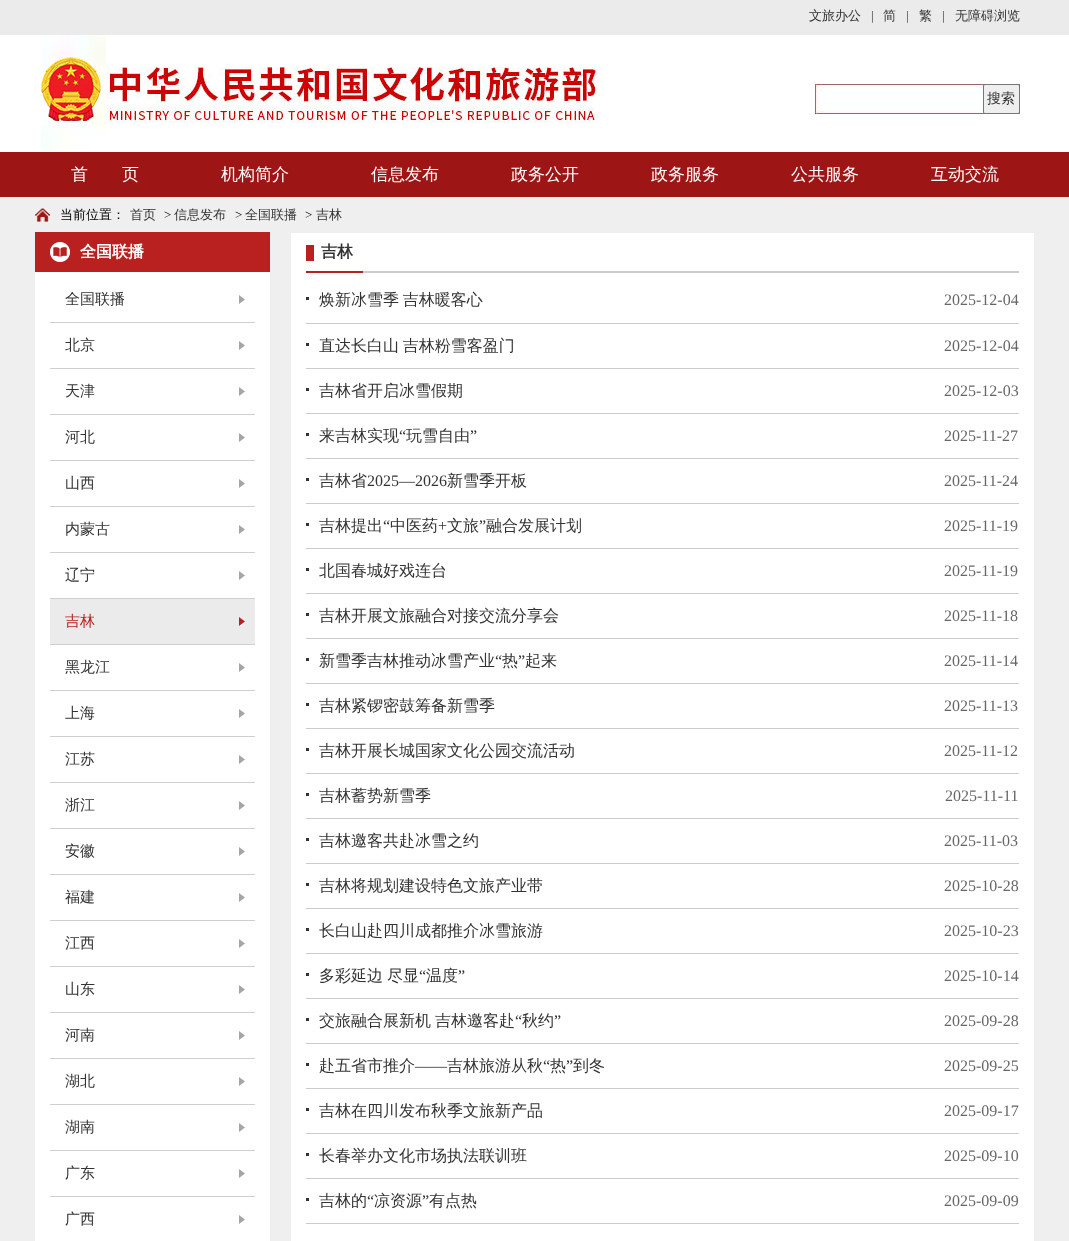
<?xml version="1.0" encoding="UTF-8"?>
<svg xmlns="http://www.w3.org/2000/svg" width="1069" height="1241">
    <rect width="100%" height="100%" fill="#EFEFEF"/>
    <rect x="0" y="35" width="1069" height="117" fill="#FFFFFF"/>
    <rect x="0" y="0" width="1069" height="35" fill="#EBEBEB"/>
    <text x="809" y="20" font-family="WenQuanYi Zen Hei" font-size="13" font-weight="500" fill="#333333">文旅办公</text>
    <text x="871" y="20" font-family="Liberation Serif" font-size="13" fill="#333333">|</text>
    <text x="883" y="20" font-family="WenQuanYi Zen Hei" font-size="13" font-weight="500" fill="#333333">简</text>
    <text x="906" y="20" font-family="Liberation Serif" font-size="13" fill="#333333">|</text>
    <text x="919" y="20" font-family="WenQuanYi Zen Hei" font-size="13" font-weight="500" fill="#333333">繁</text>
    <text x="942" y="20" font-family="Liberation Serif" font-size="13" fill="#333333">|</text>
    <text x="955" y="20" font-family="WenQuanYi Zen Hei" font-size="13" font-weight="500" fill="#333333">无障碍浏览</text>
    <image x="35" y="35" width="568" height="117" href="img_01.png"/>
    <image x="815" y="84" width="168" height="30" href="img_02.png"/>
    <image x="983" y="84" width="37" height="30" href="img_03.png"/>
    <rect x="983.5" y="84.5" width="36" height="29" rx="1.5" fill="#EFEFEF" stroke="#767676"/>
    <text x="987" y="103" font-family="WenQuanYi Zen Hei" font-size="14" font-weight="500" fill="#333333">搜索</text>
    <rect x="0" y="152" width="1069" height="45" fill="#9D1515"/>
    <text x="71" y="180" font-family="WenQuanYi Zen Hei" font-size="17" font-weight="500" fill="#FFFFFF">首　　页</text>
    <text x="221" y="180" font-family="WenQuanYi Zen Hei" font-size="17" font-weight="500" fill="#FFFFFF">机构简介</text>
    <text x="371" y="180" font-family="WenQuanYi Zen Hei" font-size="17" font-weight="500" fill="#FFFFFF">信息发布</text>
    <text x="511" y="180" font-family="WenQuanYi Zen Hei" font-size="17" font-weight="500" fill="#FFFFFF">政务公开</text>
    <text x="651" y="180" font-family="WenQuanYi Zen Hei" font-size="17" font-weight="500" fill="#FFFFFF">政务服务</text>
    <text x="791" y="180" font-family="WenQuanYi Zen Hei" font-size="17" font-weight="500" fill="#FFFFFF">公共服务</text>
    <text x="931" y="180" font-family="WenQuanYi Zen Hei" font-size="17" font-weight="500" fill="#FFFFFF">互动交流</text>
    <image x="35" y="208" width="15" height="14" href="img_04.png"/>
    <text x="60" y="219" font-family="WenQuanYi Zen Hei" font-size="13" font-weight="500" fill="#000000">当前位置：</text>
    <text x="130" y="219" font-family="WenQuanYi Zen Hei" font-size="13" font-weight="500" fill="#333333">首页</text>
    <text x="164" y="219" font-family="Liberation Serif" font-size="13" fill="#000000">&gt;</text>
    <text x="174" y="219" font-family="WenQuanYi Zen Hei" font-size="13" font-weight="500" fill="#333333">信息发布</text>
    <text x="235" y="219" font-family="Liberation Serif" font-size="13" fill="#000000">&gt;</text>
    <text x="245" y="219" font-family="WenQuanYi Zen Hei" font-size="13" font-weight="500" fill="#333333">全国联播</text>
    <text x="305" y="219" font-family="Liberation Serif" font-size="13" fill="#000000">&gt;</text>
    <text x="316" y="219" font-family="WenQuanYi Zen Hei" font-size="13" font-weight="500" fill="#333333">吉林</text>
    <rect x="35" y="272" width="235" height="969" fill="#FFFFFF"/>
    <image x="35" y="232" width="235" height="40" href="img_05.png"/>
    <text x="80" y="257" font-family="WenQuanYi Zen Hei" font-size="16" font-weight="700" fill="#FFFFFF">全国联播</text>
    <image x="239" y="295" width="6" height="9" href="img_06.png"/>
    <rect x="50" y="322" width="205" height="1" fill="#CFCFCF"/>
    <text x="65" y="304" font-family="WenQuanYi Zen Hei" font-size="15" font-weight="500" fill="#333333">全国联播</text>
    <image x="239" y="341" width="6" height="9" href="img_06.png"/>
    <rect x="50" y="368" width="205" height="1" fill="#CFCFCF"/>
    <text x="65" y="350" font-family="WenQuanYi Zen Hei" font-size="15" font-weight="500" fill="#333333">北京</text>
    <image x="239" y="387" width="6" height="9" href="img_06.png"/>
    <rect x="50" y="414" width="205" height="1" fill="#CFCFCF"/>
    <text x="65" y="396" font-family="WenQuanYi Zen Hei" font-size="15" font-weight="500" fill="#333333">天津</text>
    <image x="239" y="433" width="6" height="9" href="img_06.png"/>
    <rect x="50" y="460" width="205" height="1" fill="#CFCFCF"/>
    <text x="65" y="442" font-family="WenQuanYi Zen Hei" font-size="15" font-weight="500" fill="#333333">河北</text>
    <image x="239" y="479" width="6" height="9" href="img_06.png"/>
    <rect x="50" y="506" width="205" height="1" fill="#CFCFCF"/>
    <text x="65" y="488" font-family="WenQuanYi Zen Hei" font-size="15" font-weight="500" fill="#333333">山西</text>
    <image x="239" y="525" width="6" height="9" href="img_06.png"/>
    <rect x="50" y="552" width="205" height="1" fill="#CFCFCF"/>
    <text x="65" y="534" font-family="WenQuanYi Zen Hei" font-size="15" font-weight="500" fill="#333333">内蒙古</text>
    <image x="239" y="571" width="6" height="9" href="img_06.png"/>
    <rect x="50" y="598" width="205" height="1" fill="#CFCFCF"/>
    <text x="65" y="580" font-family="WenQuanYi Zen Hei" font-size="15" font-weight="500" fill="#333333">辽宁</text>
    <rect x="50" y="599" width="205" height="45" fill="#EBEBEB"/>
    <image x="239" y="617" width="6" height="9" href="img_07.png"/>
    <rect x="50" y="644" width="205" height="1" fill="#CFCFCF"/>
    <text x="65" y="626" font-family="WenQuanYi Zen Hei" font-size="15" font-weight="500" fill="#B92121">吉林</text>
    <image x="239" y="663" width="6" height="9" href="img_06.png"/>
    <rect x="50" y="690" width="205" height="1" fill="#CFCFCF"/>
    <text x="65" y="672" font-family="WenQuanYi Zen Hei" font-size="15" font-weight="500" fill="#333333">黑龙江</text>
    <image x="239" y="709" width="6" height="9" href="img_06.png"/>
    <rect x="50" y="736" width="205" height="1" fill="#CFCFCF"/>
    <text x="65" y="718" font-family="WenQuanYi Zen Hei" font-size="15" font-weight="500" fill="#333333">上海</text>
    <image x="239" y="755" width="6" height="9" href="img_06.png"/>
    <rect x="50" y="782" width="205" height="1" fill="#CFCFCF"/>
    <text x="65" y="764" font-family="WenQuanYi Zen Hei" font-size="15" font-weight="500" fill="#333333">江苏</text>
    <image x="239" y="801" width="6" height="9" href="img_06.png"/>
    <rect x="50" y="828" width="205" height="1" fill="#CFCFCF"/>
    <text x="65" y="810" font-family="WenQuanYi Zen Hei" font-size="15" font-weight="500" fill="#333333">浙江</text>
    <image x="239" y="847" width="6" height="9" href="img_06.png"/>
    <rect x="50" y="874" width="205" height="1" fill="#CFCFCF"/>
    <text x="65" y="856" font-family="WenQuanYi Zen Hei" font-size="15" font-weight="500" fill="#333333">安徽</text>
    <image x="239" y="893" width="6" height="9" href="img_06.png"/>
    <rect x="50" y="920" width="205" height="1" fill="#CFCFCF"/>
    <text x="65" y="902" font-family="WenQuanYi Zen Hei" font-size="15" font-weight="500" fill="#333333">福建</text>
    <image x="239" y="939" width="6" height="9" href="img_06.png"/>
    <rect x="50" y="966" width="205" height="1" fill="#CFCFCF"/>
    <text x="65" y="948" font-family="WenQuanYi Zen Hei" font-size="15" font-weight="500" fill="#333333">江西</text>
    <image x="239" y="985" width="6" height="9" href="img_06.png"/>
    <rect x="50" y="1012" width="205" height="1" fill="#CFCFCF"/>
    <text x="65" y="994" font-family="WenQuanYi Zen Hei" font-size="15" font-weight="500" fill="#333333">山东</text>
    <image x="239" y="1031" width="6" height="9" href="img_06.png"/>
    <rect x="50" y="1058" width="205" height="1" fill="#CFCFCF"/>
    <text x="65" y="1040" font-family="WenQuanYi Zen Hei" font-size="15" font-weight="500" fill="#333333">河南</text>
    <image x="239" y="1077" width="6" height="9" href="img_06.png"/>
    <rect x="50" y="1104" width="205" height="1" fill="#CFCFCF"/>
    <text x="65" y="1086" font-family="WenQuanYi Zen Hei" font-size="15" font-weight="500" fill="#333333">湖北</text>
    <image x="239" y="1123" width="6" height="9" href="img_06.png"/>
    <rect x="50" y="1150" width="205" height="1" fill="#CFCFCF"/>
    <text x="65" y="1132" font-family="WenQuanYi Zen Hei" font-size="15" font-weight="500" fill="#333333">湖南</text>
    <image x="239" y="1169" width="6" height="9" href="img_06.png"/>
    <rect x="50" y="1196" width="205" height="1" fill="#CFCFCF"/>
    <text x="65" y="1178" font-family="WenQuanYi Zen Hei" font-size="15" font-weight="500" fill="#333333">广东</text>
    <image x="239" y="1215" width="6" height="9" href="img_06.png"/>
    <text x="65" y="1224" font-family="WenQuanYi Zen Hei" font-size="15" font-weight="500" fill="#333333">广西</text>
    <rect x="291" y="233" width="743" height="1008" fill="#FFFFFF"/>
    <rect x="306" y="245" width="8" height="16" fill="#B92121"/>
    <rect x="363" y="271" width="656" height="2" fill="#CCCCCC"/>
    <rect x="306" y="271" width="57" height="2" fill="#B92121"/>
    <text x="321" y="257" font-family="WenQuanYi Zen Hei" font-size="16" font-weight="700" fill="#333333">吉林</text>
    <rect x="306" y="297" width="3" height="3" fill="#333333"/>
    <text x="319" y="305" word-spacing="-1" font-family="WenQuanYi Zen Hei" font-size="16" font-weight="500" fill="#333333">焕新冰雪季 吉林暖客心</text>
    <rect x="306" y="323" width="713" height="1" fill="#CCCCCC"/>
    <text x="944" y="305" font-family="Liberation Serif" font-size="16" fill="#666666">2025-12-04</text>
    <rect x="306" y="343" width="3" height="3" fill="#333333"/>
    <text x="319" y="351" word-spacing="-1" font-family="WenQuanYi Zen Hei" font-size="16" font-weight="500" fill="#333333">直达长白山 吉林粉雪客盈门</text>
    <rect x="306" y="368" width="713" height="1" fill="#CCCCCC"/>
    <text x="944" y="351" font-family="Liberation Serif" font-size="16" fill="#666666">2025-12-04</text>
    <rect x="306" y="388" width="3" height="3" fill="#333333"/>
    <text x="319" y="396" font-family="WenQuanYi Zen Hei" font-size="16" font-weight="500" fill="#333333">吉林省开启冰雪假期</text>
    <rect x="306" y="413" width="713" height="1" fill="#CCCCCC"/>
    <text x="944" y="396" font-family="Liberation Serif" font-size="16" fill="#666666">2025-12-03</text>
    <rect x="306" y="433" width="3" height="3" fill="#333333"/>
    <text x="319" y="441" font-family="WenQuanYi Zen Hei" font-size="16" font-weight="500" fill="#333333">来吉林实现</text>
    <text x="399" y="441" font-family="Liberation Serif" font-size="16" fill="#333333">“</text>
    <text x="406" y="441" font-family="WenQuanYi Zen Hei" font-size="16" font-weight="500" fill="#333333">玩雪自由</text>
    <text x="470" y="441" font-family="Liberation Serif" font-size="16" fill="#333333">”</text>
    <rect x="306" y="458" width="713" height="1" fill="#CCCCCC"/>
    <text x="944" y="441" font-family="Liberation Serif" font-size="16" fill="#666666">2025-11-27</text>
    <rect x="306" y="478" width="3" height="3" fill="#333333"/>
    <text x="319" y="486" font-family="WenQuanYi Zen Hei" font-size="16" font-weight="500" fill="#333333">吉林省</text>
    <text x="367" y="486" font-family="Liberation Serif" font-size="16" fill="#333333">2025—2026</text>
    <text x="447" y="486" font-family="WenQuanYi Zen Hei" font-size="16" font-weight="500" fill="#333333">新雪季开板</text>
    <rect x="306" y="503" width="713" height="1" fill="#CCCCCC"/>
    <text x="944" y="486" font-family="Liberation Serif" font-size="16" fill="#666666">2025-11-24</text>
    <rect x="306" y="523" width="3" height="3" fill="#333333"/>
    <text x="319" y="531" font-family="WenQuanYi Zen Hei" font-size="16" font-weight="500" fill="#333333">吉林提出</text>
    <text x="383" y="531" font-family="Liberation Serif" font-size="16" fill="#333333">“</text>
    <text x="390" y="531" font-family="WenQuanYi Zen Hei" font-size="16" font-weight="500" fill="#333333">中医药</text>
    <text x="438" y="531" font-family="Liberation Serif" font-size="16" fill="#333333">+</text>
    <text x="447" y="531" font-family="WenQuanYi Zen Hei" font-size="16" font-weight="500" fill="#333333">文旅</text>
    <text x="479" y="531" font-family="Liberation Serif" font-size="16" fill="#333333">”</text>
    <text x="486" y="531" font-family="WenQuanYi Zen Hei" font-size="16" font-weight="500" fill="#333333">融合发展计划</text>
    <rect x="306" y="548" width="713" height="1" fill="#CCCCCC"/>
    <text x="944" y="531" font-family="Liberation Serif" font-size="16" fill="#666666">2025-11-19</text>
    <rect x="306" y="568" width="3" height="3" fill="#333333"/>
    <text x="319" y="576" font-family="WenQuanYi Zen Hei" font-size="16" font-weight="500" fill="#333333">北国春城好戏连台</text>
    <rect x="306" y="593" width="713" height="1" fill="#CCCCCC"/>
    <text x="944" y="576" font-family="Liberation Serif" font-size="16" fill="#666666">2025-11-19</text>
    <rect x="306" y="613" width="3" height="3" fill="#333333"/>
    <text x="319" y="621" font-family="WenQuanYi Zen Hei" font-size="16" font-weight="500" fill="#333333">吉林开展文旅融合对接交流分享会</text>
    <rect x="306" y="638" width="713" height="1" fill="#CCCCCC"/>
    <text x="944" y="621" font-family="Liberation Serif" font-size="16" fill="#666666">2025-11-18</text>
    <rect x="306" y="658" width="3" height="3" fill="#333333"/>
    <text x="319" y="666" font-family="WenQuanYi Zen Hei" font-size="16" font-weight="500" fill="#333333">新雪季吉林推动冰雪产业</text>
    <text x="495" y="666" font-family="Liberation Serif" font-size="16" fill="#333333">“</text>
    <text x="502" y="666" font-family="WenQuanYi Zen Hei" font-size="16" font-weight="500" fill="#333333">热</text>
    <text x="518" y="666" font-family="Liberation Serif" font-size="16" fill="#333333">”</text>
    <text x="525" y="666" font-family="WenQuanYi Zen Hei" font-size="16" font-weight="500" fill="#333333">起来</text>
    <rect x="306" y="683" width="713" height="1" fill="#CCCCCC"/>
    <text x="944" y="666" font-family="Liberation Serif" font-size="16" fill="#666666">2025-11-14</text>
    <rect x="306" y="703" width="3" height="3" fill="#333333"/>
    <text x="319" y="711" font-family="WenQuanYi Zen Hei" font-size="16" font-weight="500" fill="#333333">吉林紧锣密鼓筹备新雪季</text>
    <rect x="306" y="728" width="713" height="1" fill="#CCCCCC"/>
    <text x="944" y="711" font-family="Liberation Serif" font-size="16" fill="#666666">2025-11-13</text>
    <rect x="306" y="748" width="3" height="3" fill="#333333"/>
    <text x="319" y="756" font-family="WenQuanYi Zen Hei" font-size="16" font-weight="500" fill="#333333">吉林开展长城国家文化公园交流活动</text>
    <rect x="306" y="773" width="713" height="1" fill="#CCCCCC"/>
    <text x="944" y="756" font-family="Liberation Serif" font-size="16" fill="#666666">2025-11-12</text>
    <rect x="306" y="793" width="3" height="3" fill="#333333"/>
    <text x="319" y="801" font-family="WenQuanYi Zen Hei" font-size="16" font-weight="500" fill="#333333">吉林蓄势新雪季</text>
    <rect x="306" y="818" width="713" height="1" fill="#CCCCCC"/>
    <text x="945" y="801" font-family="Liberation Serif" font-size="16" fill="#666666">2025-11-11</text>
    <rect x="306" y="838" width="3" height="3" fill="#333333"/>
    <text x="319" y="846" font-family="WenQuanYi Zen Hei" font-size="16" font-weight="500" fill="#333333">吉林邀客共赴冰雪之约</text>
    <rect x="306" y="863" width="713" height="1" fill="#CCCCCC"/>
    <text x="944" y="846" font-family="Liberation Serif" font-size="16" fill="#666666">2025-11-03</text>
    <rect x="306" y="883" width="3" height="3" fill="#333333"/>
    <text x="319" y="891" font-family="WenQuanYi Zen Hei" font-size="16" font-weight="500" fill="#333333">吉林将规划建设特色文旅产业带</text>
    <rect x="306" y="908" width="713" height="1" fill="#CCCCCC"/>
    <text x="944" y="891" font-family="Liberation Serif" font-size="16" fill="#666666">2025-10-28</text>
    <rect x="306" y="928" width="3" height="3" fill="#333333"/>
    <text x="319" y="936" font-family="WenQuanYi Zen Hei" font-size="16" font-weight="500" fill="#333333">长白山赴四川成都推介冰雪旅游</text>
    <rect x="306" y="953" width="713" height="1" fill="#CCCCCC"/>
    <text x="944" y="936" font-family="Liberation Serif" font-size="16" fill="#666666">2025-10-23</text>
    <rect x="306" y="973" width="3" height="3" fill="#333333"/>
    <text x="319" y="981" font-family="WenQuanYi Zen Hei" font-size="16" font-weight="500" fill="#333333">多彩延边</text>
    <text x="387" y="981" font-family="WenQuanYi Zen Hei" font-size="16" font-weight="500" fill="#333333">尽显</text>
    <text x="419" y="981" font-family="Liberation Serif" font-size="16" fill="#333333">“</text>
    <text x="426" y="981" font-family="WenQuanYi Zen Hei" font-size="16" font-weight="500" fill="#333333">温度</text>
    <text x="458" y="981" font-family="Liberation Serif" font-size="16" fill="#333333">”</text>
    <rect x="306" y="998" width="713" height="1" fill="#CCCCCC"/>
    <text x="944" y="981" font-family="Liberation Serif" font-size="16" fill="#666666">2025-10-14</text>
    <rect x="306" y="1018" width="3" height="3" fill="#333333"/>
    <text x="319" y="1026" font-family="WenQuanYi Zen Hei" font-size="16" font-weight="500" fill="#333333">交旅融合展新机</text>
    <text x="435" y="1026" font-family="WenQuanYi Zen Hei" font-size="16" font-weight="500" fill="#333333">吉林邀客赴</text>
    <text x="515" y="1026" font-family="Liberation Serif" font-size="16" fill="#333333">“</text>
    <text x="522" y="1026" font-family="WenQuanYi Zen Hei" font-size="16" font-weight="500" fill="#333333">秋约</text>
    <text x="554" y="1026" font-family="Liberation Serif" font-size="16" fill="#333333">”</text>
    <rect x="306" y="1043" width="713" height="1" fill="#CCCCCC"/>
    <text x="944" y="1026" font-family="Liberation Serif" font-size="16" fill="#666666">2025-09-28</text>
    <rect x="306" y="1063" width="3" height="3" fill="#333333"/>
    <text x="319" y="1071" font-family="WenQuanYi Zen Hei" font-size="16" font-weight="500" fill="#333333">赴五省市推介</text>
    <text x="415" y="1071" font-family="Liberation Serif" font-size="16" fill="#333333">——</text>
    <text x="447" y="1071" font-family="WenQuanYi Zen Hei" font-size="16" font-weight="500" fill="#333333">吉林旅游从秋</text>
    <text x="543" y="1071" font-family="Liberation Serif" font-size="16" fill="#333333">“</text>
    <text x="550" y="1071" font-family="WenQuanYi Zen Hei" font-size="16" font-weight="500" fill="#333333">热</text>
    <text x="566" y="1071" font-family="Liberation Serif" font-size="16" fill="#333333">”</text>
    <text x="573" y="1071" font-family="WenQuanYi Zen Hei" font-size="16" font-weight="500" fill="#333333">到冬</text>
    <rect x="306" y="1088" width="713" height="1" fill="#CCCCCC"/>
    <text x="944" y="1071" font-family="Liberation Serif" font-size="16" fill="#666666">2025-09-25</text>
    <rect x="306" y="1108" width="3" height="3" fill="#333333"/>
    <text x="319" y="1116" font-family="WenQuanYi Zen Hei" font-size="16" font-weight="500" fill="#333333">吉林在四川发布秋季文旅新产品</text>
    <rect x="306" y="1133" width="713" height="1" fill="#CCCCCC"/>
    <text x="944" y="1116" font-family="Liberation Serif" font-size="16" fill="#666666">2025-09-17</text>
    <rect x="306" y="1153" width="3" height="3" fill="#333333"/>
    <text x="319" y="1161" font-family="WenQuanYi Zen Hei" font-size="16" font-weight="500" fill="#333333">长春举办文化市场执法联训班</text>
    <rect x="306" y="1178" width="713" height="1" fill="#CCCCCC"/>
    <text x="944" y="1161" font-family="Liberation Serif" font-size="16" fill="#666666">2025-09-10</text>
    <rect x="306" y="1198" width="3" height="3" fill="#333333"/>
    <text x="319" y="1206" font-family="WenQuanYi Zen Hei" font-size="16" font-weight="500" fill="#333333">吉林的</text>
    <text x="367" y="1206" font-family="Liberation Serif" font-size="16" fill="#333333">“</text>
    <text x="374" y="1206" font-family="WenQuanYi Zen Hei" font-size="16" font-weight="500" fill="#333333">凉资源</text>
    <text x="422" y="1206" font-family="Liberation Serif" font-size="16" fill="#333333">”</text>
    <text x="429" y="1206" font-family="WenQuanYi Zen Hei" font-size="16" font-weight="500" fill="#333333">有点热</text>
    <rect x="306" y="1223" width="713" height="1" fill="#CCCCCC"/>
    <text x="944" y="1206" font-family="Liberation Serif" font-size="16" fill="#666666">2025-09-09</text>
</svg>
